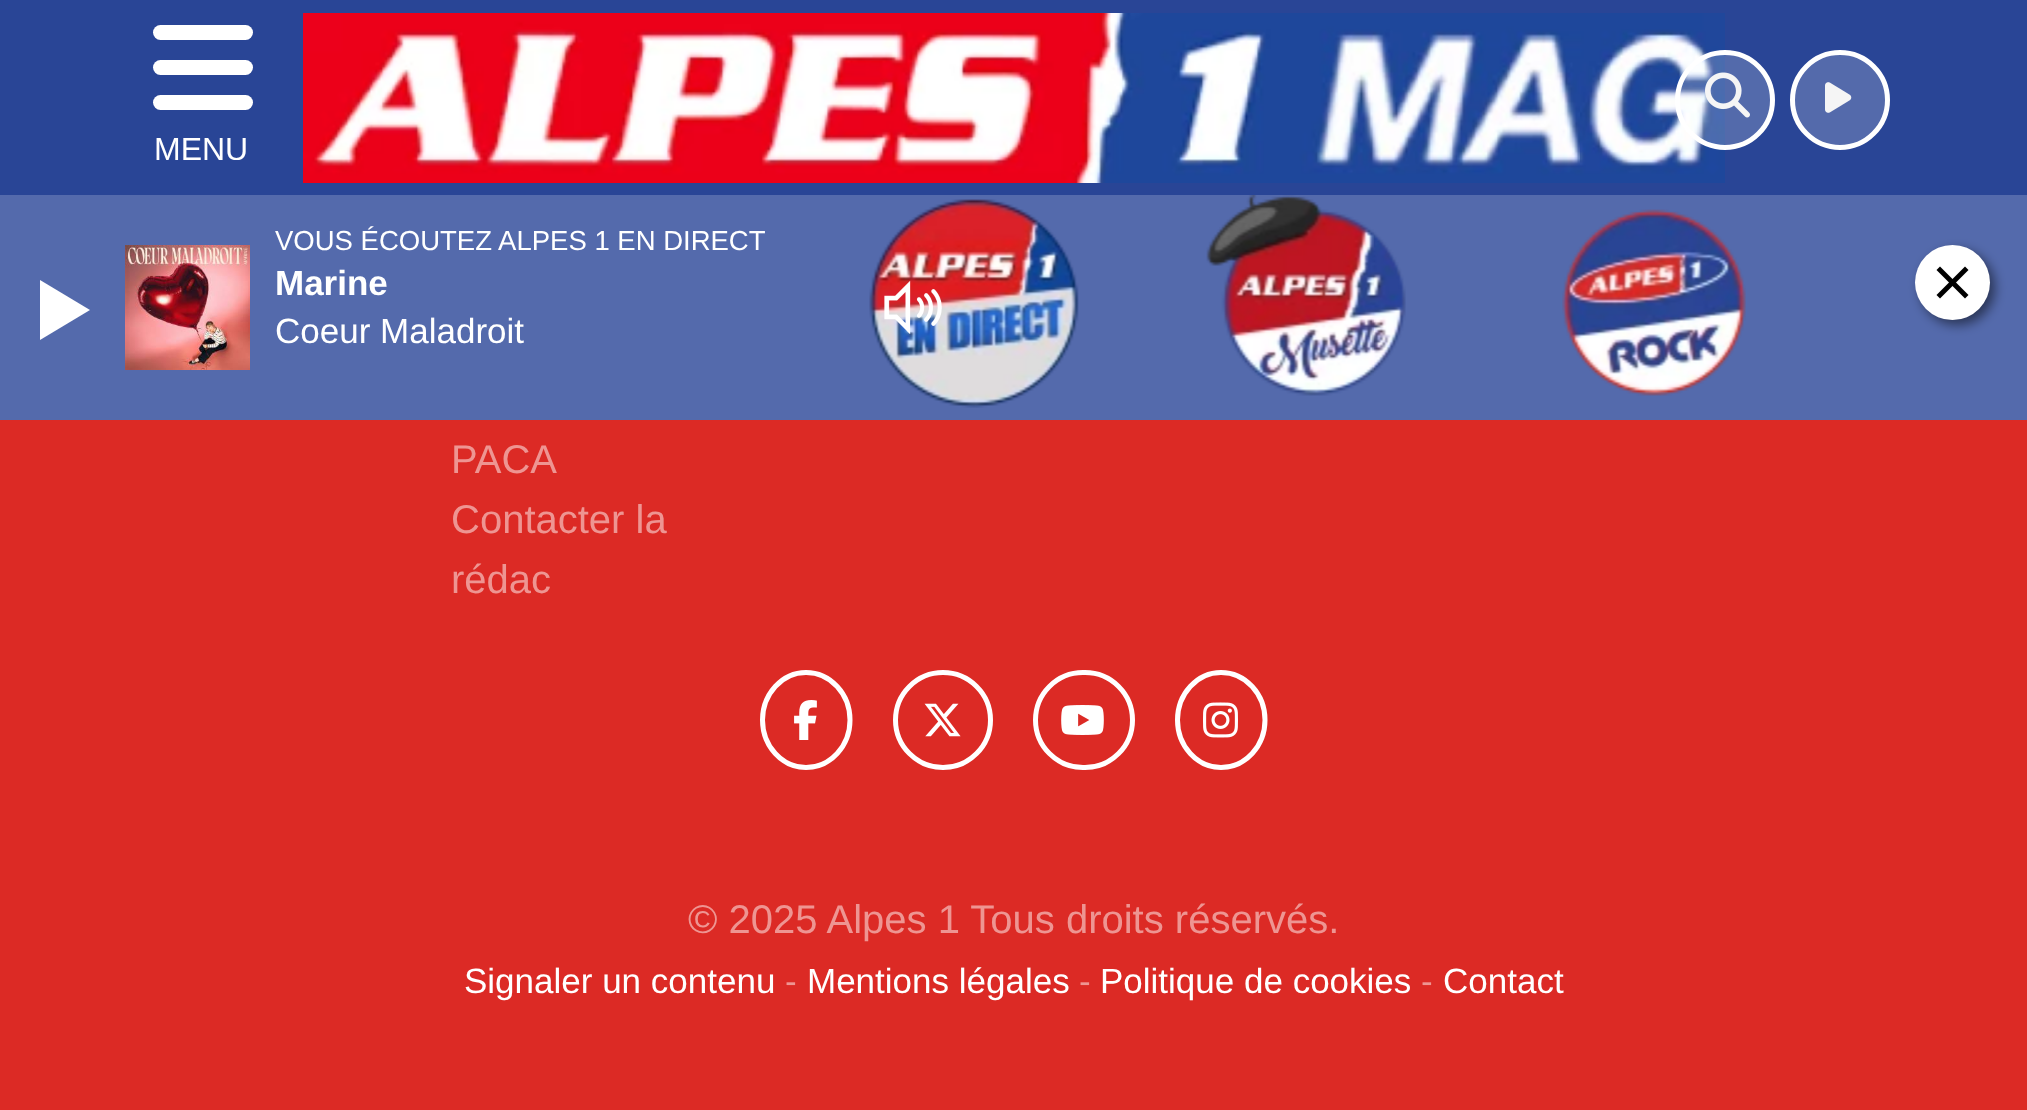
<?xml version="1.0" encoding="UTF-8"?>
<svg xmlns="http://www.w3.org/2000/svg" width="2027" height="1110">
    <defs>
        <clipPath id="clip1"><rect x="153" y="25" width="100" height="135"/></clipPath>
        <filter id="blur1" x="-50%" y="-200%" width="200%" height="500%"><feGaussianBlur stdDeviation="6"/></filter>
    </defs>
    <rect width="100%" height="100%" fill="#DC2A25"/>
    <rect x="0" y="0" width="2027" height="195" fill="#294596"/>
    <image x="303" y="13" width="1422" height="170" href="img_01.png"/>
    <rect x="153" y="25" width="100" height="15" rx="7.5" fill="#FFFFFF"/>
    <rect x="153" y="60" width="100" height="15" rx="7.5" fill="#FFFFFF"/>
    <rect x="153" y="95" width="100" height="15" rx="7.5" fill="#FFFFFF"/>
    <g clip-path="url(#clip1)">
        <text x="154" y="160" font-family="Liberation Sans" font-size="32" fill="#FFFFFF">MENU</text>
    </g>
    <circle cx="1725" cy="100" r="47.5" fill="#FFFFFF" fill-opacity="0.2" stroke="#FFFFFF" stroke-width="5"/>
    <image x="1705" y="72" width="45" height="46" href="img_02.png"/>
    <circle cx="1840" cy="100" r="47.5" fill="#546AAB" stroke="#FFFFFF" stroke-width="5"/>
    <image x="1825" y="82" width="27" height="31" href="img_03.png"/>
    <text font-family="Liberation Sans" font-size="40" fill="#EE9592">
        <tspan x="451" y="473">PACA</tspan>
        <tspan x="451" y="533">Contacter la</tspan>
        <tspan x="451" y="593">rédac</tspan>
    </text>
    <path d="M 806 672.5 C 830.5 672.5 850 694 850 720 C 850 746 830.5 767.5 806 767.5 C 782 767.5 762.5 746 762.5 720 C 762.5 694 782 672.5 806 672.5 Z" fill="none" stroke="#FFFFFF" stroke-width="5"/>
    <image x="794" y="700" width="23" height="40" href="img_04.png"/>
    <circle cx="943" cy="720" r="47.5" fill="none" stroke="#FFFFFF" stroke-width="5"/>
    <image x="924" y="703" width="37" height="34" href="img_05.png"/>
    <rect x="1035.5" y="672.5" width="97" height="95" rx="47.5" fill="none" stroke="#FFFFFF" stroke-width="5"/>
    <image x="1061" y="705" width="43" height="30" href="img_06.png"/>
    <path d="M 1221 672.5 C 1245.5 672.5 1265 694 1265 720 C 1265 746 1245.5 767.5 1221 767.5 C 1197 767.5 1177.5 746 1177.5 720 C 1177.5 694 1197 672.5 1221 672.5 Z" fill="none" stroke="#FFFFFF" stroke-width="5"/>
    <image x="1203" y="702" width="35" height="36" href="img_07.png"/>
    <text x="688" y="933" font-family="Liberation Sans" font-size="40" fill="#EE9592">© 2025 Alpes 1 Tous droits réservés.</text>
    <text x="464" y="993" font-family="Liberation Sans" font-size="35" fill="#FFFFFF">Signaler un contenu</text>
    <text x="785" y="993" font-family="Liberation Sans" font-size="35" fill="#EE9592">-</text>
    <text x="807" y="993" font-family="Liberation Sans" font-size="35" fill="#FFFFFF">Mentions légales</text>
    <text x="1079" y="993" font-family="Liberation Sans" font-size="35" fill="#EE9592">-</text>
    <text x="1100" y="993" font-family="Liberation Sans" font-size="35" fill="#FFFFFF">Politique de cookies</text>
    <text x="1421" y="993" font-family="Liberation Sans" font-size="35" fill="#EE9592">-</text>
    <text x="1443" y="993" font-family="Liberation Sans" font-size="35" fill="#FFFFFF">Contact</text>
    <rect x="0" y="195" width="2027" height="225" fill="#546AAC"/>
    <text x="275" y="250" font-family="Liberation Sans" font-size="27.5" fill="#FFFFFF">VOUS ÉCOUTEZ ALPES 1 EN DIRECT</text>
    <image x="125" y="245" width="125" height="125" href="img_08.png"/>
    <text x="275" y="295" font-family="Liberation Sans" font-size="35" font-weight="700" fill="#FFFFFF">Marine</text>
    <text x="275" y="343" font-family="Liberation Sans" font-size="35" fill="#FFFFFF">Coeur Maladroit</text>
    <path d="M 40 340 V 280 L 90 310 Z" fill="#FFFFFF"/>
    <image x="869" y="199" width="210" height="209" href="img_10.png"/>
    <image x="884" y="280" width="58" height="54" href="img_09.png"/>
    <image x="1206" y="195" width="200" height="201" href="img_11.png"/>
    <image x="1562" y="209" width="184" height="187" href="img_12.png"/>
    <rect x="1920" y="250" width="75" height="75" rx="37.5" fill="#000000" fill-opacity="0.5" filter="url(#blur1)"/>
    <circle cx="1952.5" cy="282.5" r="37.5" fill="#FFFFFF"/>
    <path d="M 1940 266.5 L 1968.5 295 L 1965 298.5 L 1936.5 270 Z" fill="#000000"/>
    <path d="M 1936.5 295 L 1965 266.5 L 1968.5 270 L 1940 298.5 Z" fill="#000000"/>
</svg>
